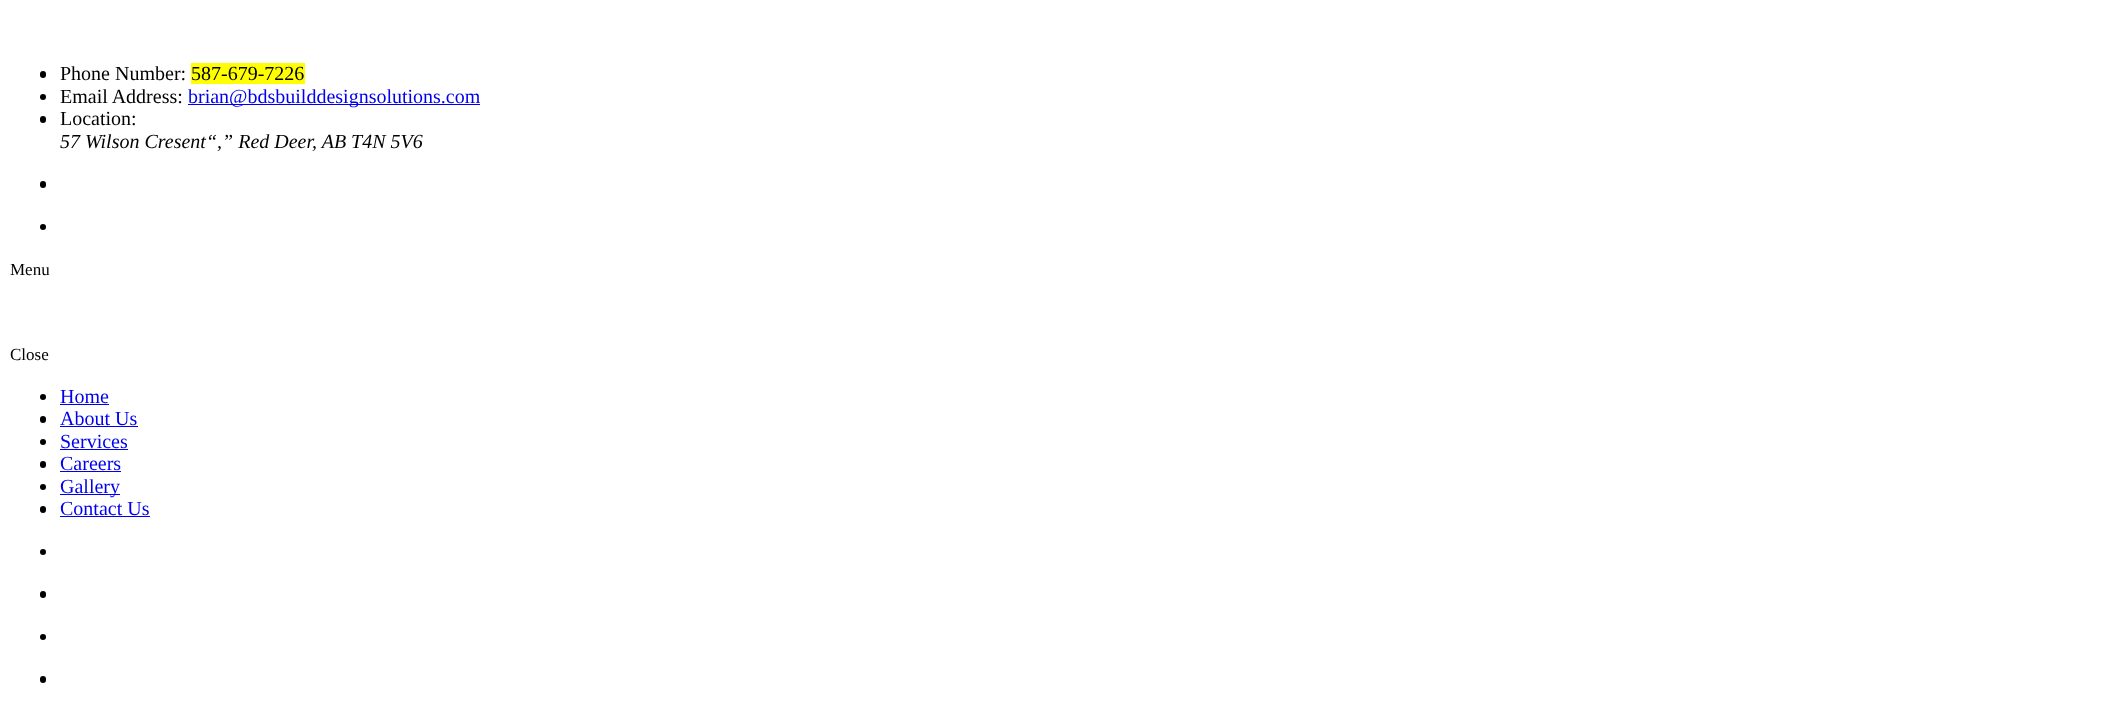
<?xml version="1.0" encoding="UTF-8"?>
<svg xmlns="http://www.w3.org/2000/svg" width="2111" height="719">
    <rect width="100%" height="100%" fill="#FFFFFF"/>
    <rect x="40" y="71" width="6" height="7" rx="3" fill="#000000"/>
    <text x="60" y="80" font-family="Liberation Serif" font-size="20" fill="#000000">Phone Number:</text>
    <rect x="191" y="63" width="114" height="21" fill="#FFFF00"/>
    <text x="191" y="80" font-family="Liberation Serif" font-size="20" fill="#000000">587-679-7226</text>
    <circle cx="43" cy="97" r="3" fill="#000000"/>
    <text x="60" y="103" font-family="Liberation Serif" font-size="20" fill="#000000">Email Address:</text>
    <rect x="188" y="104" width="292" height="1" fill="#0000EE"/>
    <text x="188" y="103" font-family="Liberation Serif" font-size="20" fill="#0000EE">brian@bdsbuilddesignsolutions.com</text>
    <rect x="40" y="116" width="6" height="7" rx="3" fill="#000000"/>
    <text x="60" y="125" font-family="Liberation Serif" font-size="20" fill="#000000">Location:</text>
    <text x="60" y="148" font-family="Liberation Serif" font-size="20" font-style="italic" fill="#000000">57 Wilson Cresent“,” Red Deer, AB T4N 5V6</text>
    <rect x="40" y="181" width="6" height="7" rx="3" fill="#000000"/>
    <circle cx="43" cy="227" r="3" fill="#000000"/>
    <text x="10" y="275" font-family="Liberation Serif" font-size="17" fill="#000000">Menu</text>
    <text x="10" y="360" font-family="Liberation Serif" font-size="17" fill="#000000">Close</text>
    <circle cx="43" cy="397" r="3" fill="#000000"/>
    <text x="60" y="403" font-family="Liberation Serif" font-size="20" fill="#0000EE">Home</text>
    <rect x="60" y="404" width="49" height="1" fill="#0000EE"/>
    <rect x="40" y="416" width="6" height="7" rx="3" fill="#000000"/>
    <text x="60" y="425" font-family="Liberation Serif" font-size="20" fill="#0000EE">About Us</text>
    <rect x="60" y="426" width="78" height="1" fill="#0000EE"/>
    <circle cx="43" cy="442" r="3" fill="#000000"/>
    <text x="60" y="448" font-family="Liberation Serif" font-size="20" fill="#0000EE">Services</text>
    <rect x="60" y="449" width="68" height="1" fill="#0000EE"/>
    <rect x="40" y="461" width="6" height="7" rx="3" fill="#000000"/>
    <text x="60" y="470" font-family="Liberation Serif" font-size="20" fill="#0000EE">Careers</text>
    <rect x="60" y="471" width="61" height="1" fill="#0000EE"/>
    <circle cx="43" cy="487" r="3" fill="#000000"/>
    <rect x="60" y="494" width="60" height="1" fill="#0000EE"/>
    <text x="60" y="493" font-family="Liberation Serif" font-size="20" fill="#0000EE">Gallery</text>
    <rect x="40" y="506" width="6" height="7" rx="3" fill="#000000"/>
    <text x="60" y="515" font-family="Liberation Serif" font-size="20" fill="#0000EE">Contact Us</text>
    <rect x="60" y="516" width="90" height="1" fill="#0000EE"/>
    <circle cx="43" cy="552" r="3" fill="#000000"/>
    <rect x="40" y="591" width="6" height="7" rx="3" fill="#000000"/>
    <circle cx="43" cy="637" r="3" fill="#000000"/>
    <rect x="40" y="676" width="6" height="7" rx="3" fill="#000000"/>
</svg>
